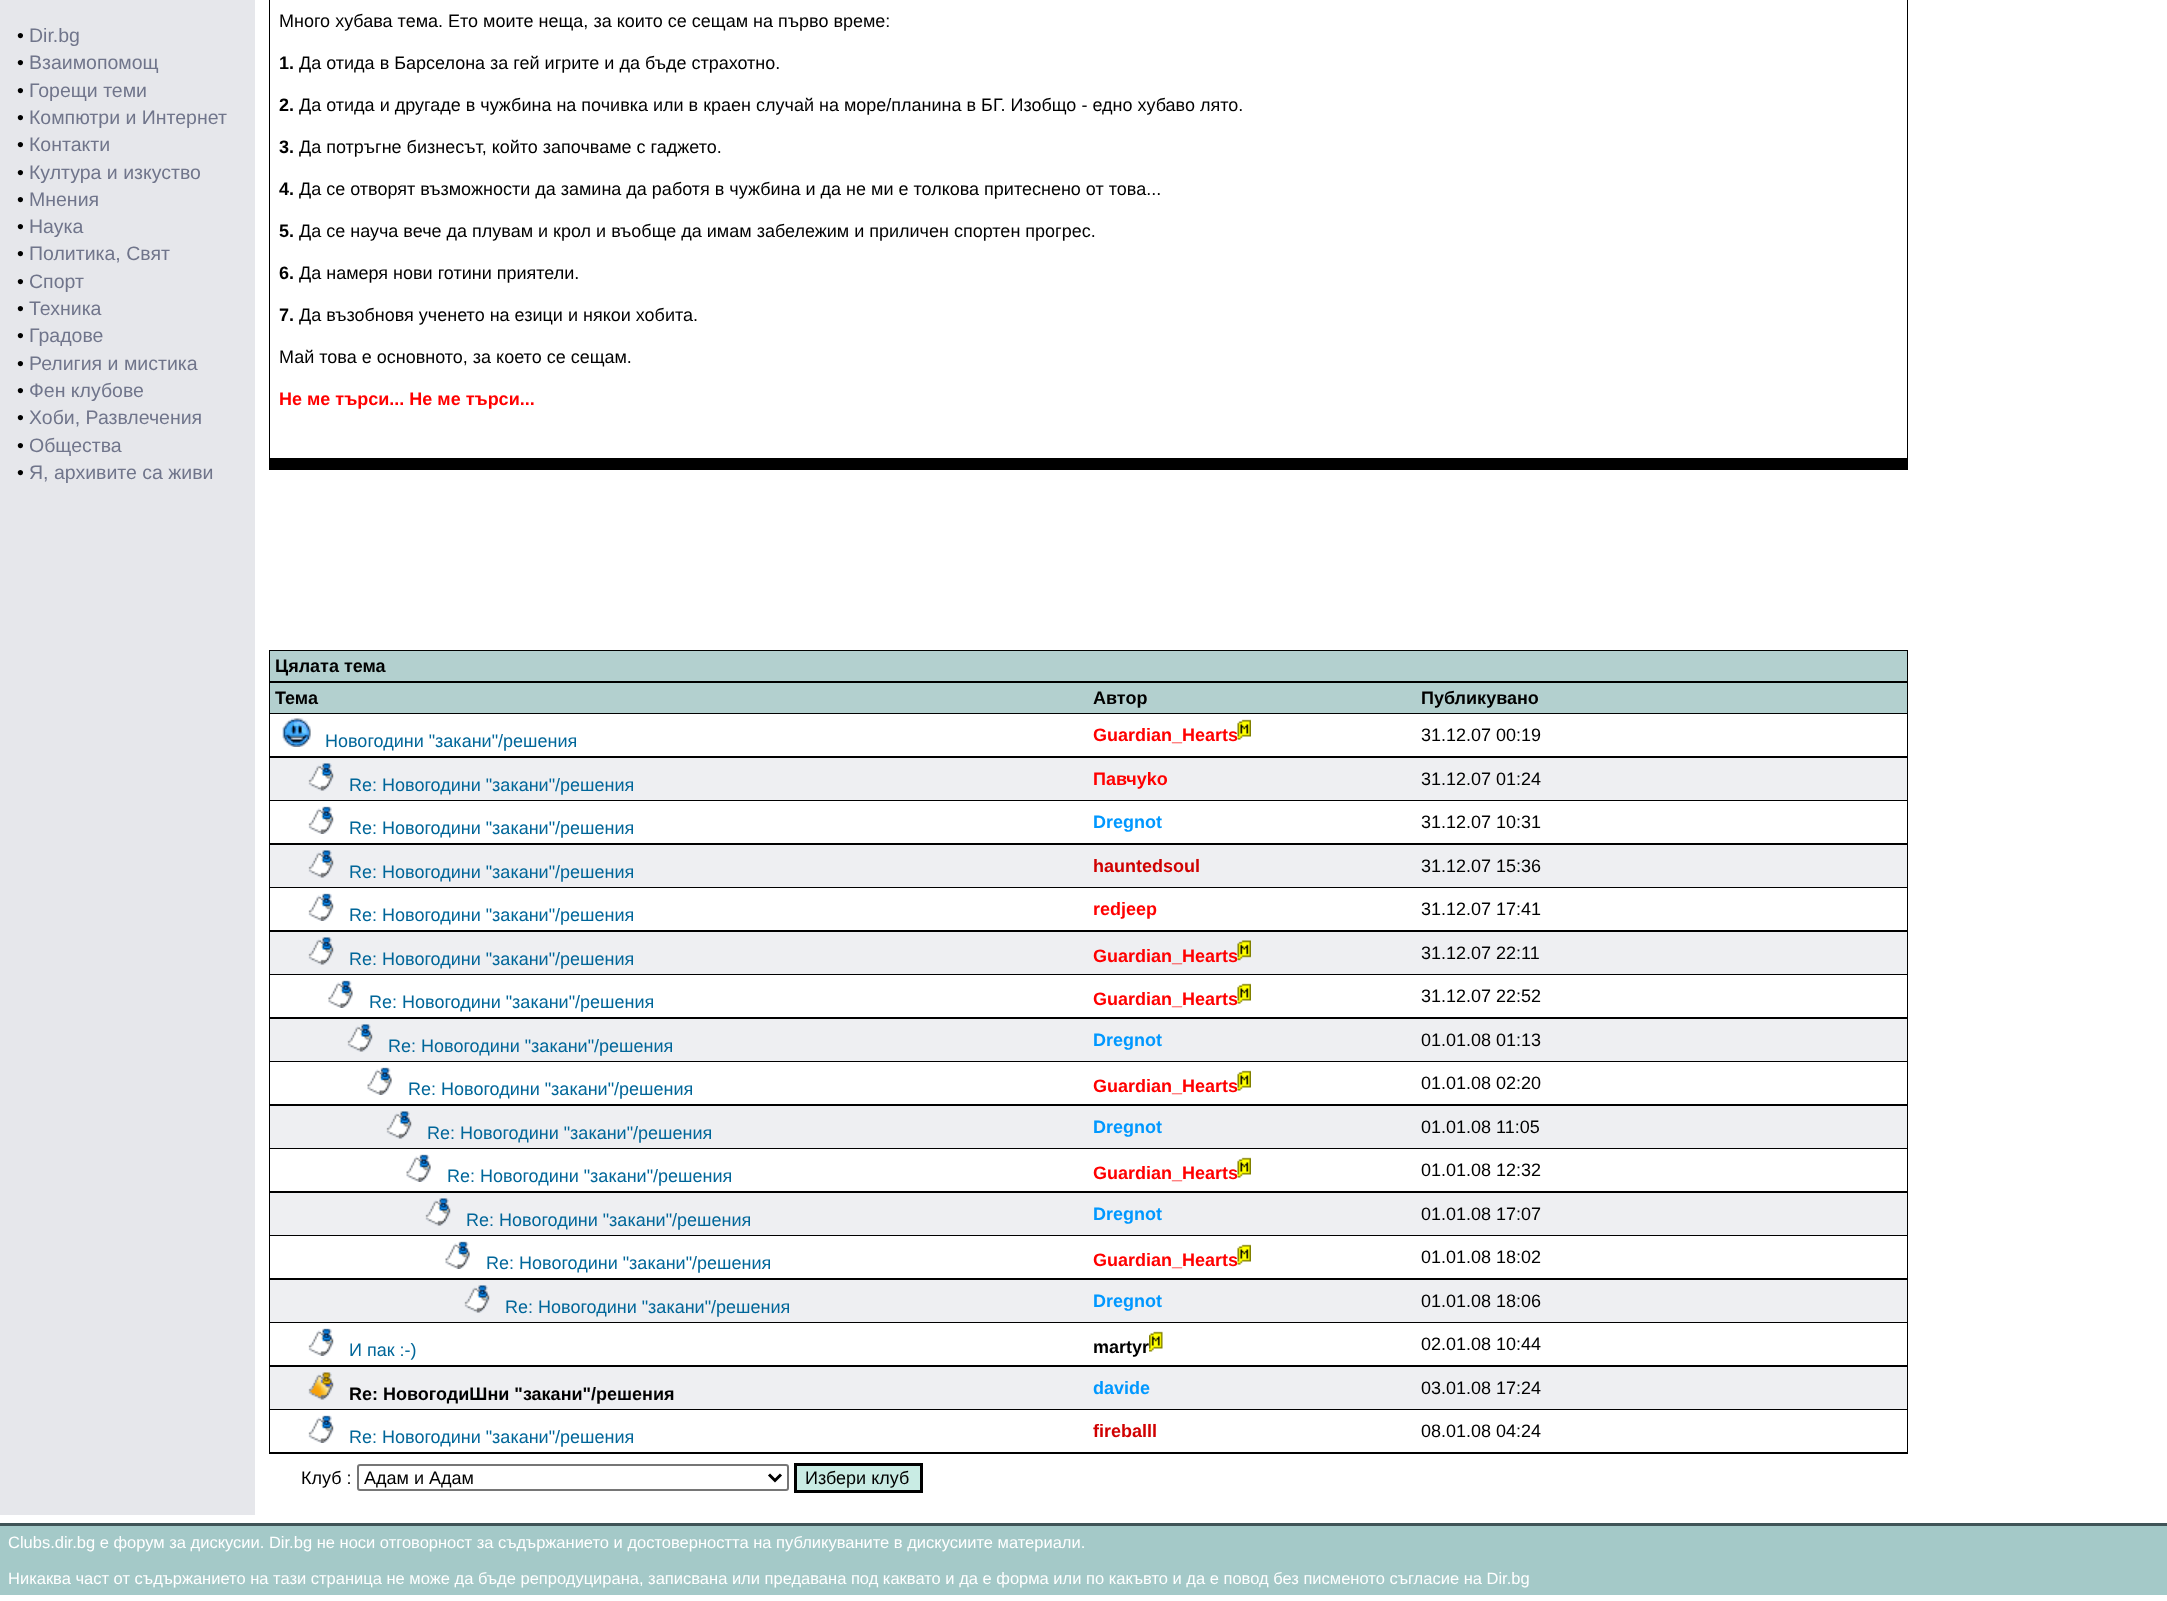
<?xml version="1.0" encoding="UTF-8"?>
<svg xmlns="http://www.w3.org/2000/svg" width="2167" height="1601">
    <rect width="100%" height="100%" fill="#FFFFFF"/>
    <rect x="0" y="0" width="255" height="1515" fill="#E6E7EB"/>
    <text x="17" y="42" font-family="Liberation Sans" font-size="19.5" fill="#000000">•</text>
    <text x="29" y="42" font-family="Liberation Sans" font-size="19.5" fill="#70758B">Dir.bg</text>
    <text x="17" y="69" font-family="Liberation Sans" font-size="19.5" fill="#000000">•</text>
    <text x="29" y="69" font-family="Liberation Sans" font-size="19.5" fill="#70758B">Взаимопомощ</text>
    <text x="17" y="97" font-family="Liberation Sans" font-size="19.5" fill="#000000">•</text>
    <text x="29" y="97" font-family="Liberation Sans" font-size="19.5" fill="#70758B">Горещи теми</text>
    <text x="17" y="124" font-family="Liberation Sans" font-size="19.5" fill="#000000">•</text>
    <text x="29" y="124" font-family="Liberation Sans" font-size="19.5" fill="#70758B">Компютри и Интернет</text>
    <text x="17" y="151" font-family="Liberation Sans" font-size="19.5" fill="#000000">•</text>
    <text x="29" y="151" font-family="Liberation Sans" font-size="19.5" fill="#70758B">Контакти</text>
    <text x="17" y="179" font-family="Liberation Sans" font-size="19.5" fill="#000000">•</text>
    <text x="29" y="179" font-family="Liberation Sans" font-size="19.5" fill="#70758B">Култура и изкуство</text>
    <text x="17" y="206" font-family="Liberation Sans" font-size="19.5" fill="#000000">•</text>
    <text x="29" y="206" font-family="Liberation Sans" font-size="19.5" fill="#70758B">Мнения</text>
    <text x="17" y="233" font-family="Liberation Sans" font-size="19.5" fill="#000000">•</text>
    <text x="29" y="233" font-family="Liberation Sans" font-size="19.5" fill="#70758B">Наука</text>
    <text x="17" y="260" font-family="Liberation Sans" font-size="19.5" fill="#000000">•</text>
    <text x="29" y="260" font-family="Liberation Sans" font-size="19.5" fill="#70758B">Политика, Свят</text>
    <text x="17" y="288" font-family="Liberation Sans" font-size="19.5" fill="#000000">•</text>
    <text x="29" y="288" font-family="Liberation Sans" font-size="19.5" fill="#70758B">Спорт</text>
    <text x="17" y="315" font-family="Liberation Sans" font-size="19.5" fill="#000000">•</text>
    <text x="29" y="315" font-family="Liberation Sans" font-size="19.5" fill="#70758B">Техника</text>
    <text x="17" y="342" font-family="Liberation Sans" font-size="19.5" fill="#000000">•</text>
    <text x="29" y="342" font-family="Liberation Sans" font-size="19.5" fill="#70758B">Градове</text>
    <text x="17" y="370" font-family="Liberation Sans" font-size="19.5" fill="#000000">•</text>
    <text x="29" y="370" font-family="Liberation Sans" font-size="19.5" fill="#70758B">Религия и мистика</text>
    <text x="17" y="397" font-family="Liberation Sans" font-size="19.5" fill="#000000">•</text>
    <text x="29" y="397" font-family="Liberation Sans" font-size="19.5" fill="#70758B">Фен клубове</text>
    <text x="17" y="424" font-family="Liberation Sans" font-size="19.5" fill="#000000">•</text>
    <text x="29" y="424" font-family="Liberation Sans" font-size="19.5" fill="#70758B">Хоби, Развлечения</text>
    <text x="17" y="452" font-family="Liberation Sans" font-size="19.5" fill="#000000">•</text>
    <text x="29" y="452" font-family="Liberation Sans" font-size="19.5" fill="#70758B">Общества</text>
    <text x="17" y="479" font-family="Liberation Sans" font-size="19.5" fill="#000000">•</text>
    <text x="29" y="479" font-family="Liberation Sans" font-size="19.5" fill="#70758B">Я, архивите са живи</text>
    <rect x="269" y="0" width="1639" height="470" fill="#000000"/>
    <rect x="270" y="0" width="1637" height="458" fill="#FFFFFF"/>
    <text x="279" y="27" font-family="Liberation Sans" font-size="18" fill="#000000">Много хубава тема. Ето моите неща, за които се сещам на първо време:</text>
    <text x="279" y="69" font-family="Liberation Sans" font-size="18" font-weight="700" fill="#000000">1.</text>
    <text x="299" y="69" font-family="Liberation Sans" font-size="18" fill="#000000">Да отида в Барселона за гей игрите и да бъде страхотно.</text>
    <text x="279" y="111" font-family="Liberation Sans" font-size="18" font-weight="700" fill="#000000">2.</text>
    <text x="299" y="111" font-family="Liberation Sans" font-size="18" fill="#000000">Да отида и другаде в чужбина на почивка или в краен случай на море/планина в БГ. Изобщо - едно хубаво лято.</text>
    <text x="279" y="153" font-family="Liberation Sans" font-size="18" font-weight="700" fill="#000000">3.</text>
    <text x="299" y="153" font-family="Liberation Sans" font-size="18" fill="#000000">Да потръгне бизнесът, който започваме с гаджето.</text>
    <text x="279" y="195" font-family="Liberation Sans" font-size="18" font-weight="700" fill="#000000">4.</text>
    <text x="299" y="195" font-family="Liberation Sans" font-size="18" fill="#000000">Да се отворят възможности да замина да работя в чужбина и да не ми е толкова притеснено от това...</text>
    <text x="279" y="237" font-family="Liberation Sans" font-size="18" font-weight="700" fill="#000000">5.</text>
    <text x="299" y="237" font-family="Liberation Sans" font-size="18" fill="#000000">Да се науча вече да плувам и крол и въобще да имам забележим и приличен спортен прогрес.</text>
    <text x="279" y="279" font-family="Liberation Sans" font-size="18" font-weight="700" fill="#000000">6.</text>
    <text x="299" y="279" font-family="Liberation Sans" font-size="18" fill="#000000">Да намеря нови готини приятели.</text>
    <text x="279" y="321" font-family="Liberation Sans" font-size="18" font-weight="700" fill="#000000">7.</text>
    <text x="299" y="321" font-family="Liberation Sans" font-size="18" fill="#000000">Да възобновя ученето на езици и някои хобита.</text>
    <text x="279" y="363" font-family="Liberation Sans" font-size="18" fill="#000000">Май това е основното, за което се сещам.</text>
    <text x="279" y="405" font-family="Liberation Sans" font-size="18" font-weight="700" fill="#FF0000">Не ме търси... Не ме търси...</text>
    <rect x="269" y="650" width="1639" height="804" fill="#000000"/>
    <rect x="270" y="651" width="1637" height="30" fill="#B3D0CF"/>
    <text x="275" y="672" font-family="Liberation Sans" font-size="18" font-weight="700" fill="#000000">Цялата тема</text>
    <rect x="270" y="683" width="1637" height="30" fill="#B3D0CF"/>
    <text x="275" y="704" font-family="Liberation Sans" font-size="18" font-weight="700" fill="#000000">Тема</text>
    <text x="1093" y="704" font-family="Liberation Sans" font-size="18" font-weight="700" fill="#000000">Автор</text>
    <text x="1421" y="704" font-family="Liberation Sans" font-size="18" font-weight="700" fill="#000000">Публикувано</text>
    <rect x="270" y="714" width="1637" height="42" fill="#FFFFFF"/>
    <image x="282" y="718" width="29" height="29" href="img_01.png"/>
    <text x="325" y="747" font-family="Liberation Sans" font-size="18" fill="#006699">Новогодини "закани"/решения</text>
    <text x="1093" y="741" font-family="Liberation Sans" font-size="18" font-weight="700" fill="#FF0000">Guardian_Hearts</text>
    <image x="1237" y="719" width="14" height="21" href="img_02.png"/>
    <text x="1421" y="741" font-family="Liberation Sans" font-size="18" fill="#000000">31.12.07 00:19</text>
    <rect x="270" y="758" width="1637" height="42" fill="#EEEFF2"/>
    <image x="308" y="763" width="26" height="28" href="img_03.png"/>
    <text x="349" y="791" font-family="Liberation Sans" font-size="18" fill="#006699">Re: Новогодини "закани"/решения</text>
    <text x="1093" y="785" font-family="Liberation Sans" font-size="18" font-weight="700" fill="#FF0000">Пaвчyko</text>
    <text x="1421" y="785" font-family="Liberation Sans" font-size="18" fill="#000000">31.12.07 01:24</text>
    <rect x="270" y="801" width="1637" height="42" fill="#FFFFFF"/>
    <image x="308" y="806" width="26" height="28" href="img_04.png"/>
    <text x="349" y="834" font-family="Liberation Sans" font-size="18" fill="#006699">Re: Новогодини "закани"/решения</text>
    <text x="1093" y="828" font-family="Liberation Sans" font-size="18" font-weight="700" fill="#0098FF">Dregnot</text>
    <text x="1421" y="828" font-family="Liberation Sans" font-size="18" fill="#000000">31.12.07 10:31</text>
    <rect x="270" y="845" width="1637" height="42" fill="#EEEFF2"/>
    <image x="308" y="850" width="26" height="28" href="img_03.png"/>
    <text x="349" y="878" font-family="Liberation Sans" font-size="18" fill="#006699">Re: Новогодини "закани"/решения</text>
    <text x="1093" y="872" font-family="Liberation Sans" font-size="18" font-weight="700" fill="#D00000">hauntedsoul</text>
    <text x="1421" y="872" font-family="Liberation Sans" font-size="18" fill="#000000">31.12.07 15:36</text>
    <rect x="270" y="888" width="1637" height="42" fill="#FFFFFF"/>
    <image x="308" y="893" width="26" height="28" href="img_04.png"/>
    <text x="349" y="921" font-family="Liberation Sans" font-size="18" fill="#006699">Re: Новогодини "закани"/решения</text>
    <text x="1093" y="915" font-family="Liberation Sans" font-size="18" font-weight="700" fill="#FF0000">redjeep</text>
    <text x="1421" y="915" font-family="Liberation Sans" font-size="18" fill="#000000">31.12.07 17:41</text>
    <rect x="270" y="932" width="1637" height="42" fill="#EEEFF2"/>
    <image x="308" y="937" width="26" height="28" href="img_03.png"/>
    <text x="349" y="965" font-family="Liberation Sans" font-size="18" fill="#006699">Re: Новогодини "закани"/решения</text>
    <text x="1093" y="962" font-family="Liberation Sans" font-size="18" font-weight="700" fill="#FF0000">Guardian_Hearts</text>
    <image x="1237" y="940" width="14" height="21" href="img_05.png"/>
    <text x="1421" y="959" font-family="Liberation Sans" font-size="18" fill="#000000">31.12.07 22:11</text>
    <rect x="270" y="975" width="1637" height="42" fill="#FFFFFF"/>
    <image x="328" y="980" width="25" height="28" href="img_06.png"/>
    <text x="369" y="1008" font-family="Liberation Sans" font-size="18" fill="#006699">Re: Новогодини "закани"/решения</text>
    <text x="1093" y="1005" font-family="Liberation Sans" font-size="18" font-weight="700" fill="#FF0000">Guardian_Hearts</text>
    <image x="1237" y="983" width="14" height="21" href="img_02.png"/>
    <text x="1421" y="1002" font-family="Liberation Sans" font-size="18" fill="#000000">31.12.07 22:52</text>
    <rect x="270" y="1019" width="1637" height="42" fill="#EEEFF2"/>
    <image x="347" y="1024" width="26" height="28" href="img_03.png"/>
    <text x="388" y="1052" font-family="Liberation Sans" font-size="18" fill="#006699">Re: Новогодини "закани"/решения</text>
    <text x="1093" y="1046" font-family="Liberation Sans" font-size="18" font-weight="700" fill="#0098FF">Dregnot</text>
    <text x="1421" y="1046" font-family="Liberation Sans" font-size="18" fill="#000000">01.01.08 01:13</text>
    <rect x="270" y="1062" width="1637" height="42" fill="#FFFFFF"/>
    <image x="367" y="1067" width="25" height="28" href="img_07.png"/>
    <text x="408" y="1095" font-family="Liberation Sans" font-size="18" fill="#006699">Re: Новогодини "закани"/решения</text>
    <text x="1093" y="1092" font-family="Liberation Sans" font-size="18" font-weight="700" fill="#FF0000">Guardian_Hearts</text>
    <image x="1237" y="1070" width="14" height="21" href="img_02.png"/>
    <text x="1421" y="1089" font-family="Liberation Sans" font-size="18" fill="#000000">01.01.08 02:20</text>
    <rect x="270" y="1106" width="1637" height="42" fill="#EEEFF2"/>
    <image x="386" y="1111" width="26" height="28" href="img_03.png"/>
    <text x="427" y="1139" font-family="Liberation Sans" font-size="18" fill="#006699">Re: Новогодини "закани"/решения</text>
    <text x="1093" y="1133" font-family="Liberation Sans" font-size="18" font-weight="700" fill="#0098FF">Dregnot</text>
    <text x="1421" y="1133" font-family="Liberation Sans" font-size="18" fill="#000000">01.01.08 11:05</text>
    <rect x="270" y="1149" width="1637" height="42" fill="#FFFFFF"/>
    <image x="406" y="1154" width="25" height="28" href="img_07.png"/>
    <text x="447" y="1182" font-family="Liberation Sans" font-size="18" fill="#006699">Re: Новогодини "закани"/решения</text>
    <text x="1093" y="1179" font-family="Liberation Sans" font-size="18" font-weight="700" fill="#FF0000">Guardian_Hearts</text>
    <image x="1237" y="1157" width="14" height="21" href="img_02.png"/>
    <text x="1421" y="1176" font-family="Liberation Sans" font-size="18" fill="#000000">01.01.08 12:32</text>
    <rect x="270" y="1193" width="1637" height="42" fill="#EEEFF2"/>
    <image x="425" y="1198" width="26" height="28" href="img_03.png"/>
    <text x="466" y="1226" font-family="Liberation Sans" font-size="18" fill="#006699">Re: Новогодини "закани"/решения</text>
    <text x="1093" y="1220" font-family="Liberation Sans" font-size="18" font-weight="700" fill="#0098FF">Dregnot</text>
    <text x="1421" y="1220" font-family="Liberation Sans" font-size="18" fill="#000000">01.01.08 17:07</text>
    <rect x="270" y="1236" width="1637" height="42" fill="#FFFFFF"/>
    <image x="445" y="1241" width="25" height="28" href="img_07.png"/>
    <text x="486" y="1269" font-family="Liberation Sans" font-size="18" fill="#006699">Re: Новогодини "закани"/решения</text>
    <text x="1093" y="1266" font-family="Liberation Sans" font-size="18" font-weight="700" fill="#FF0000">Guardian_Hearts</text>
    <image x="1237" y="1244" width="14" height="21" href="img_02.png"/>
    <text x="1421" y="1263" font-family="Liberation Sans" font-size="18" fill="#000000">01.01.08 18:02</text>
    <rect x="270" y="1280" width="1637" height="42" fill="#EEEFF2"/>
    <image x="464" y="1285" width="26" height="28" href="img_03.png"/>
    <text x="505" y="1313" font-family="Liberation Sans" font-size="18" fill="#006699">Re: Новогодини "закани"/решения</text>
    <text x="1093" y="1307" font-family="Liberation Sans" font-size="18" font-weight="700" fill="#0098FF">Dregnot</text>
    <text x="1421" y="1307" font-family="Liberation Sans" font-size="18" fill="#000000">01.01.08 18:06</text>
    <rect x="270" y="1323" width="1637" height="42" fill="#FFFFFF"/>
    <image x="308" y="1328" width="26" height="28" href="img_04.png"/>
    <text x="349" y="1356" font-family="Liberation Sans" font-size="18" fill="#006699">И пак :-)</text>
    <text x="1093" y="1353" font-family="Liberation Sans" font-size="18" font-weight="700" fill="#000000">martyr</text>
    <image x="1149" y="1331" width="14" height="21" href="img_08.png"/>
    <text x="1421" y="1350" font-family="Liberation Sans" font-size="18" fill="#000000">02.01.08 10:44</text>
    <rect x="270" y="1367" width="1637" height="42" fill="#EEEFF2"/>
    <image x="308" y="1372" width="26" height="28" href="img_09.png"/>
    <text x="349" y="1400" font-family="Liberation Sans" font-size="18" font-weight="700" fill="#000000">Re: НовогодиШни "закани"/решения</text>
    <text x="1093" y="1394" font-family="Liberation Sans" font-size="18" font-weight="700" fill="#0098FF">davide</text>
    <text x="1421" y="1394" font-family="Liberation Sans" font-size="18" fill="#000000">03.01.08 17:24</text>
    <rect x="270" y="1410" width="1637" height="42" fill="#FFFFFF"/>
    <image x="308" y="1415" width="26" height="28" href="img_04.png"/>
    <text x="349" y="1443" font-family="Liberation Sans" font-size="18" fill="#006699">Re: Новогодини "закани"/решения</text>
    <text x="1093" y="1437" font-family="Liberation Sans" font-size="18" font-weight="700" fill="#D00000">fireballl</text>
    <text x="1421" y="1437" font-family="Liberation Sans" font-size="18" fill="#000000">08.01.08 04:24</text>
    <text x="301" y="1484" font-family="Liberation Sans" font-size="18" fill="#000000">Клуб :</text>
    <rect x="358" y="1465" width="430" height="25" rx="2" fill="none" stroke="#767676" stroke-width="2"/>
    <path d="M 769 1474.5 L 775 1480.5 L 781 1474.5" fill="none" stroke="#000000" stroke-width="3"/>
    <text x="364" y="1484" font-family="Liberation Sans" font-size="18" fill="#000000">Адам и Адам</text>
    <rect x="795.5" y="1464.5" width="126" height="27" fill="#C9ECE4" stroke="#000000" stroke-width="3"/>
    <text x="805" y="1484" font-family="Liberation Sans" font-size="18" fill="#000000">Избери клуб</text>
    <rect x="0" y="1526" width="2167" height="69" fill="#A4C9C8"/>
    <rect x="0" y="1523" width="2167" height="3" fill="#405457"/>
    <text x="8" y="1548" font-family="Liberation Sans" font-size="16.5" fill="#FFFFFF">Clubs.dir.bg е форум за дискусии. Dir.bg не носи отговорност за съдържанието и достоверността на публикуваните в дискусиите материали.</text>
    <text x="8" y="1584" font-family="Liberation Sans" font-size="16.5" fill="#FFFFFF">Никаква част от съдържанието на тази страница не може да бъде репродуцирана, записвана или предавана под каквато и да е форма или по какъвто и да е повод без писменото съгласие на Dir.bg</text>
</svg>
